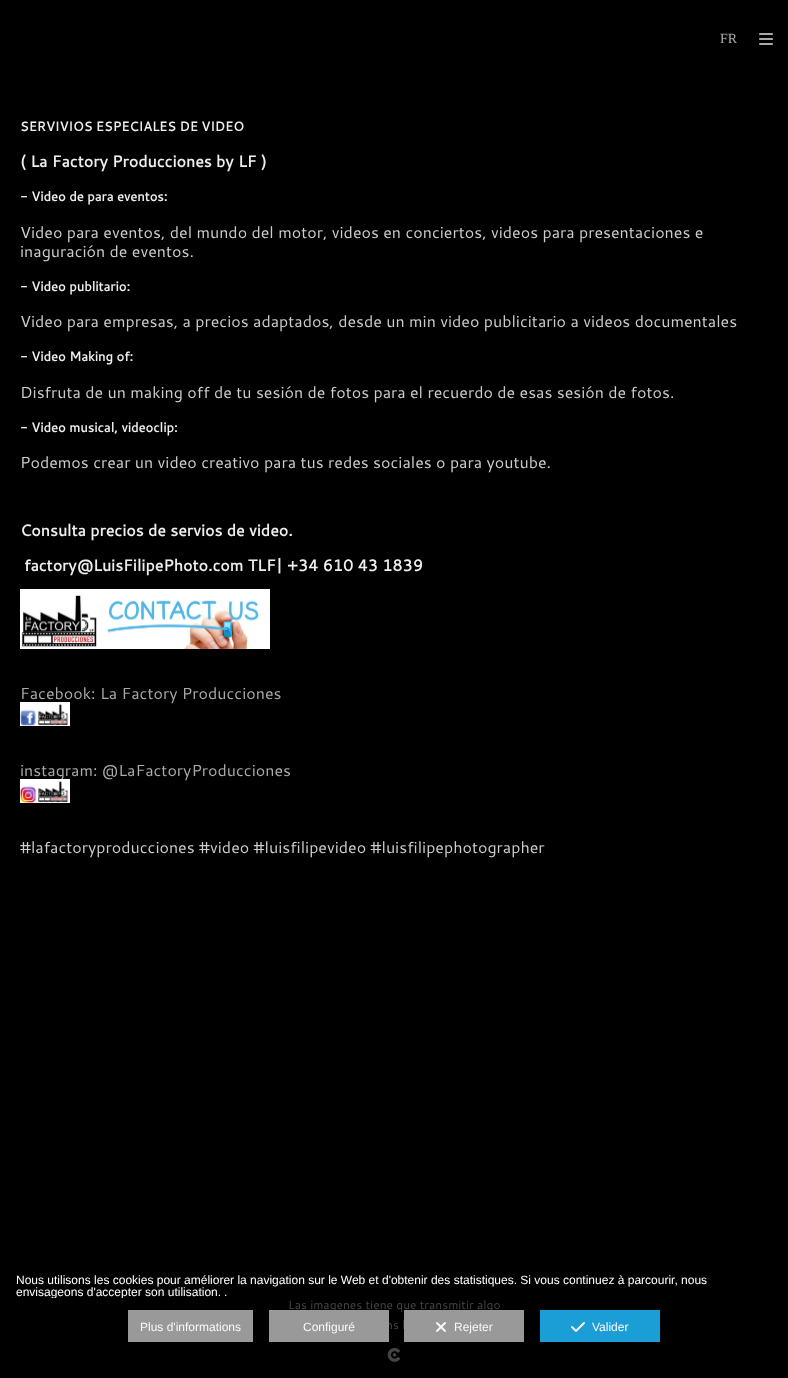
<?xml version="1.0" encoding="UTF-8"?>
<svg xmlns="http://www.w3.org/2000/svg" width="788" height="1378">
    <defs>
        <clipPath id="clip1"><rect x="0" y="1266" width="788" height="32"/></clipPath>
    </defs>
    <rect width="100%" height="100%" fill="#000000"/>
    <text x="720" y="43" font-family="Liberation Serif" font-size="14" fill="#AAAAAA">FR</text>
    <image x="759" y="33" width="14" height="12" href="img_01.png"/>
    <text x="20" y="131" font-family="Cantarell" font-size="13" font-weight="700" fill="#EEEEEE">SERVIVIOS ESPECIALES DE VIDEO</text>
    <text x="20" y="167" font-family="Cantarell" font-size="16" font-weight="700" fill="#EEEEEE">( La Factory Producciones by LF )</text>
    <text x="20" y="201" font-family="Cantarell" font-size="13" font-weight="700" fill="#EEEEEE">- Video de para eventos:</text>
    <text font-family="Cantarell" font-size="16" fill="#CCCCCC">
        <tspan x="20" y="238">Video para eventos, del mundo del motor, videos en conciertos, videos para presentaciones e</tspan>
        <tspan x="20" y="257">inaguración de eventos.</tspan>
    </text>
    <text x="20" y="291" font-family="Cantarell" font-size="13" font-weight="700" fill="#EEEEEE">- Video publitario:</text>
    <text x="20" y="327" font-family="Cantarell" font-size="16" fill="#CCCCCC">Video para empresas, a precios adaptados, desde un min video publicitario a videos documentales</text>
    <text x="20" y="361" font-family="Cantarell" font-size="13" font-weight="700" fill="#EEEEEE">- Video Making of:</text>
    <text x="20" y="398" font-family="Cantarell" font-size="16" fill="#CCCCCC">Disfruta de un making off de tu sesión de fotos para el recuerdo de esas sesión de fotos.</text>
    <text x="20" y="432" font-family="Cantarell" font-size="13" font-weight="700" fill="#EEEEEE">- Video musical, videoclip:</text>
    <text x="20" y="468" font-family="Cantarell" font-size="16" fill="#CCCCCC">Podemos crear un video creativo para tus redes sociales o para youtube.</text>
    <text x="20" y="536" font-family="Cantarell" font-size="16" font-weight="700" fill="#EEEEEE">Consulta precios de servios de video.</text>
    <text x="24" y="571" font-family="Cantarell" font-size="16" font-weight="700" fill="#EEEEEE">factory@LuisFilipePhoto.com TLF| +34 610 43 1839</text>
    <image x="20" y="589" width="250" height="60" href="img_02.png"/>
    <text x="20" y="699" font-family="Cantarell" font-size="16" fill="#AAAAAA">Facebook: La Factory Producciones</text>
    <image x="20" y="702" width="50" height="24" href="img_03.png"/>
    <text x="20" y="776" font-family="Cantarell" font-size="16" fill="#AAAAAA">instagram: @LaFactoryProducciones</text>
    <image x="20" y="779" width="50" height="24" href="img_04.png"/>
    <text x="20" y="853" font-family="Cantarell" font-size="16" fill="#CCCCCC">#lafactoryproducciones #video #luisfilipevideo #luisfilipephotographer</text>
    <text x="288" y="1309" font-family="Cantarell" font-size="12" fill="#444444">Las imagenes tiene que transmitir algo</text>
    <text x="386" y="1329" font-family="Cantarell" font-size="12" fill="#444444">ns l</text>
    <image x="387" y="1347" width="14" height="15" href="img_05.png"/>
    <text x="16" y="1284" font-family="Liberation Sans" font-size="12" fill="#FFFFFF">Nous utilisons les cookies pour améliorer la navigation sur le Web et d'obtenir des statistiques. Si vous continuez à parcourir, nous</text>
    <g clip-path="url(#clip1)">
        <text x="16" y="1296" font-family="Liberation Sans" font-size="12" fill="#FFFFFF">envisageons d'accepter son utilisation.</text>
    </g>
    <text x="224" y="1296" font-family="Liberation Sans" font-size="12" fill="#FFFFFF">.</text>
    <rect x="128" y="1310" width="125" height="32" fill="#999999"/>
    <text x="140" y="1331" font-family="Liberation Sans" font-size="12" fill="#F9F9F9">Plus d'informations</text>
    <rect x="269" y="1310" width="120" height="32" fill="#999999"/>
    <text x="303" y="1331" font-family="Liberation Sans" font-size="12" fill="#F9F9F9">Configuré</text>
    <rect x="404" y="1310" width="120" height="32" fill="#999999"/>
    <image x="436" y="1322" width="10" height="10" href="img_06.png"/>
    <text x="454" y="1331" font-family="Liberation Sans" font-size="12" fill="#F9F9F9">Rejeter</text>
    <rect x="540" y="1310" width="120" height="32" fill="#1A9ED5"/>
    <image x="571" y="1322" width="14" height="10" href="img_07.png"/>
    <text x="592" y="1331" font-family="Liberation Sans" font-size="12" fill="#F9F9F9">Valider</text>
</svg>
